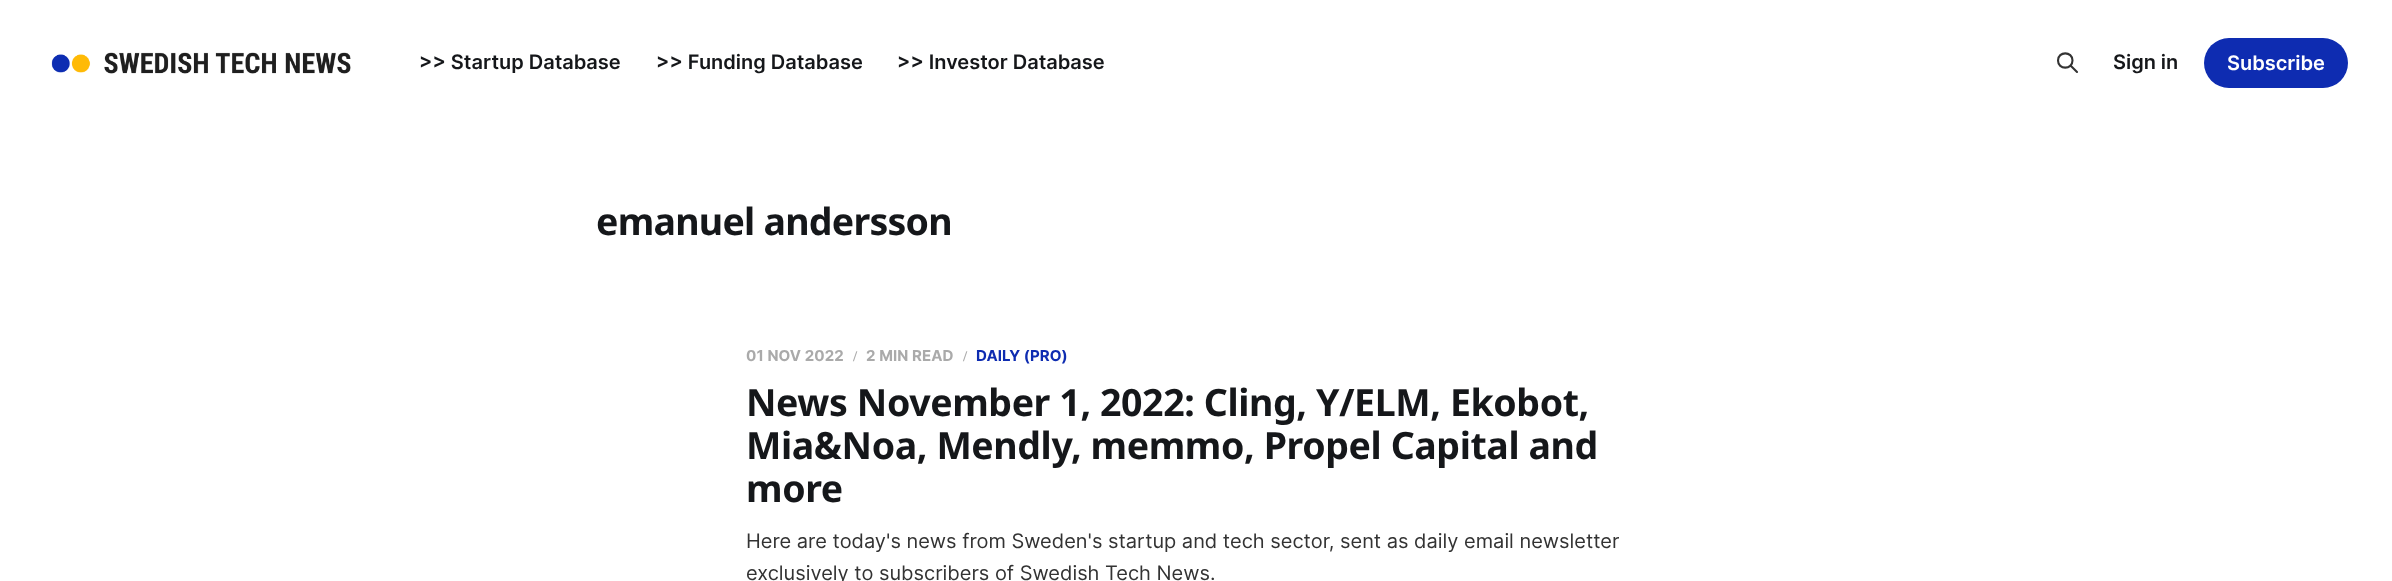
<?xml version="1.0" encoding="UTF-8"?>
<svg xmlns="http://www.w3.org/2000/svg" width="2392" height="581">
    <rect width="100%" height="100%" fill="#FFFFFF"/>
    <image x="51" y="52" width="300" height="22" href="img_01.png"/>
    <text x="419" y="69" font-family="Inter" font-size="20" font-weight="600" fill="#15171A">&gt;&gt; Startup Database</text>
    <text x="656" y="69" font-family="Inter" font-size="20" font-weight="600" fill="#15171A">&gt;&gt; Funding Database</text>
    <text x="897" y="69" font-family="Inter" font-size="20" font-weight="600" fill="#15171A">&gt;&gt; Investor Database</text>
    <path d="M 2077 72 L 2070.5 65.5 M 2072.5 60.5 C 2072.5 70 2058 70 2058 60.5 C 2058 51 2072.5 51 2072.5 60.5 Z" fill="none" stroke="#333333" stroke-width="2.1" stroke-linecap="round" stroke-linejoin="round"/>
    <text x="2113" y="69" font-family="Inter" font-size="20" font-weight="600" fill="#15171A">Sign in</text>
    <rect x="2204" y="38" width="144" height="50" rx="25" fill="#0E2CB1"/>
    <text x="2227" y="70" font-family="Inter" font-size="20" font-weight="600" fill="#FFFFFF">Subscribe</text>
    <text x="596" y="235" font-family="Noto Sans" font-size="37.5" font-weight="700" letter-spacing="-0.75" fill="#15171A">emanuel andersson</text>
    <text x="746" y="361" font-family="Inter" font-size="15" font-weight="700" letter-spacing="0.1" fill="#AAAAAA">01 NOV 2022</text>
    <text x="853" y="361" font-family="Liberation Serif" font-size="15" font-weight="700" letter-spacing="0.1" fill="#AAAAAA">/</text>
    <text x="866" y="361" font-family="Inter" font-size="15" font-weight="700" letter-spacing="0.1" fill="#AAAAAA">2 MIN READ</text>
    <text x="963" y="361" font-family="Liberation Serif" font-size="15" font-weight="700" letter-spacing="0.1" fill="#AAAAAA">/</text>
    <text x="976" y="361" font-family="Inter" font-size="15" font-weight="700" letter-spacing="0.1" fill="#0E2CB1">DAILY (PRO)</text>
    <text font-family="Noto Sans" font-size="37.5" font-weight="700" letter-spacing="-0.4" fill="#15171A">
        <tspan x="746" y="416">News November 1, 2022: Cling, Y/ELM, Ekobot,</tspan>
        <tspan x="746" y="459">Mia&amp;Noa, Mendly, memmo, Propel Capital and</tspan>
        <tspan x="746" y="502">more</tspan>
    </text>
    <text font-family="Inter" font-size="20" fill="#333333">
        <tspan x="746" y="548">Here are today's news from Sweden's startup and tech sector, sent as daily email newsletter</tspan>
        <tspan x="746" y="580">exclusively to subscribers of Swedish Tech News.</tspan>
    </text>
</svg>
